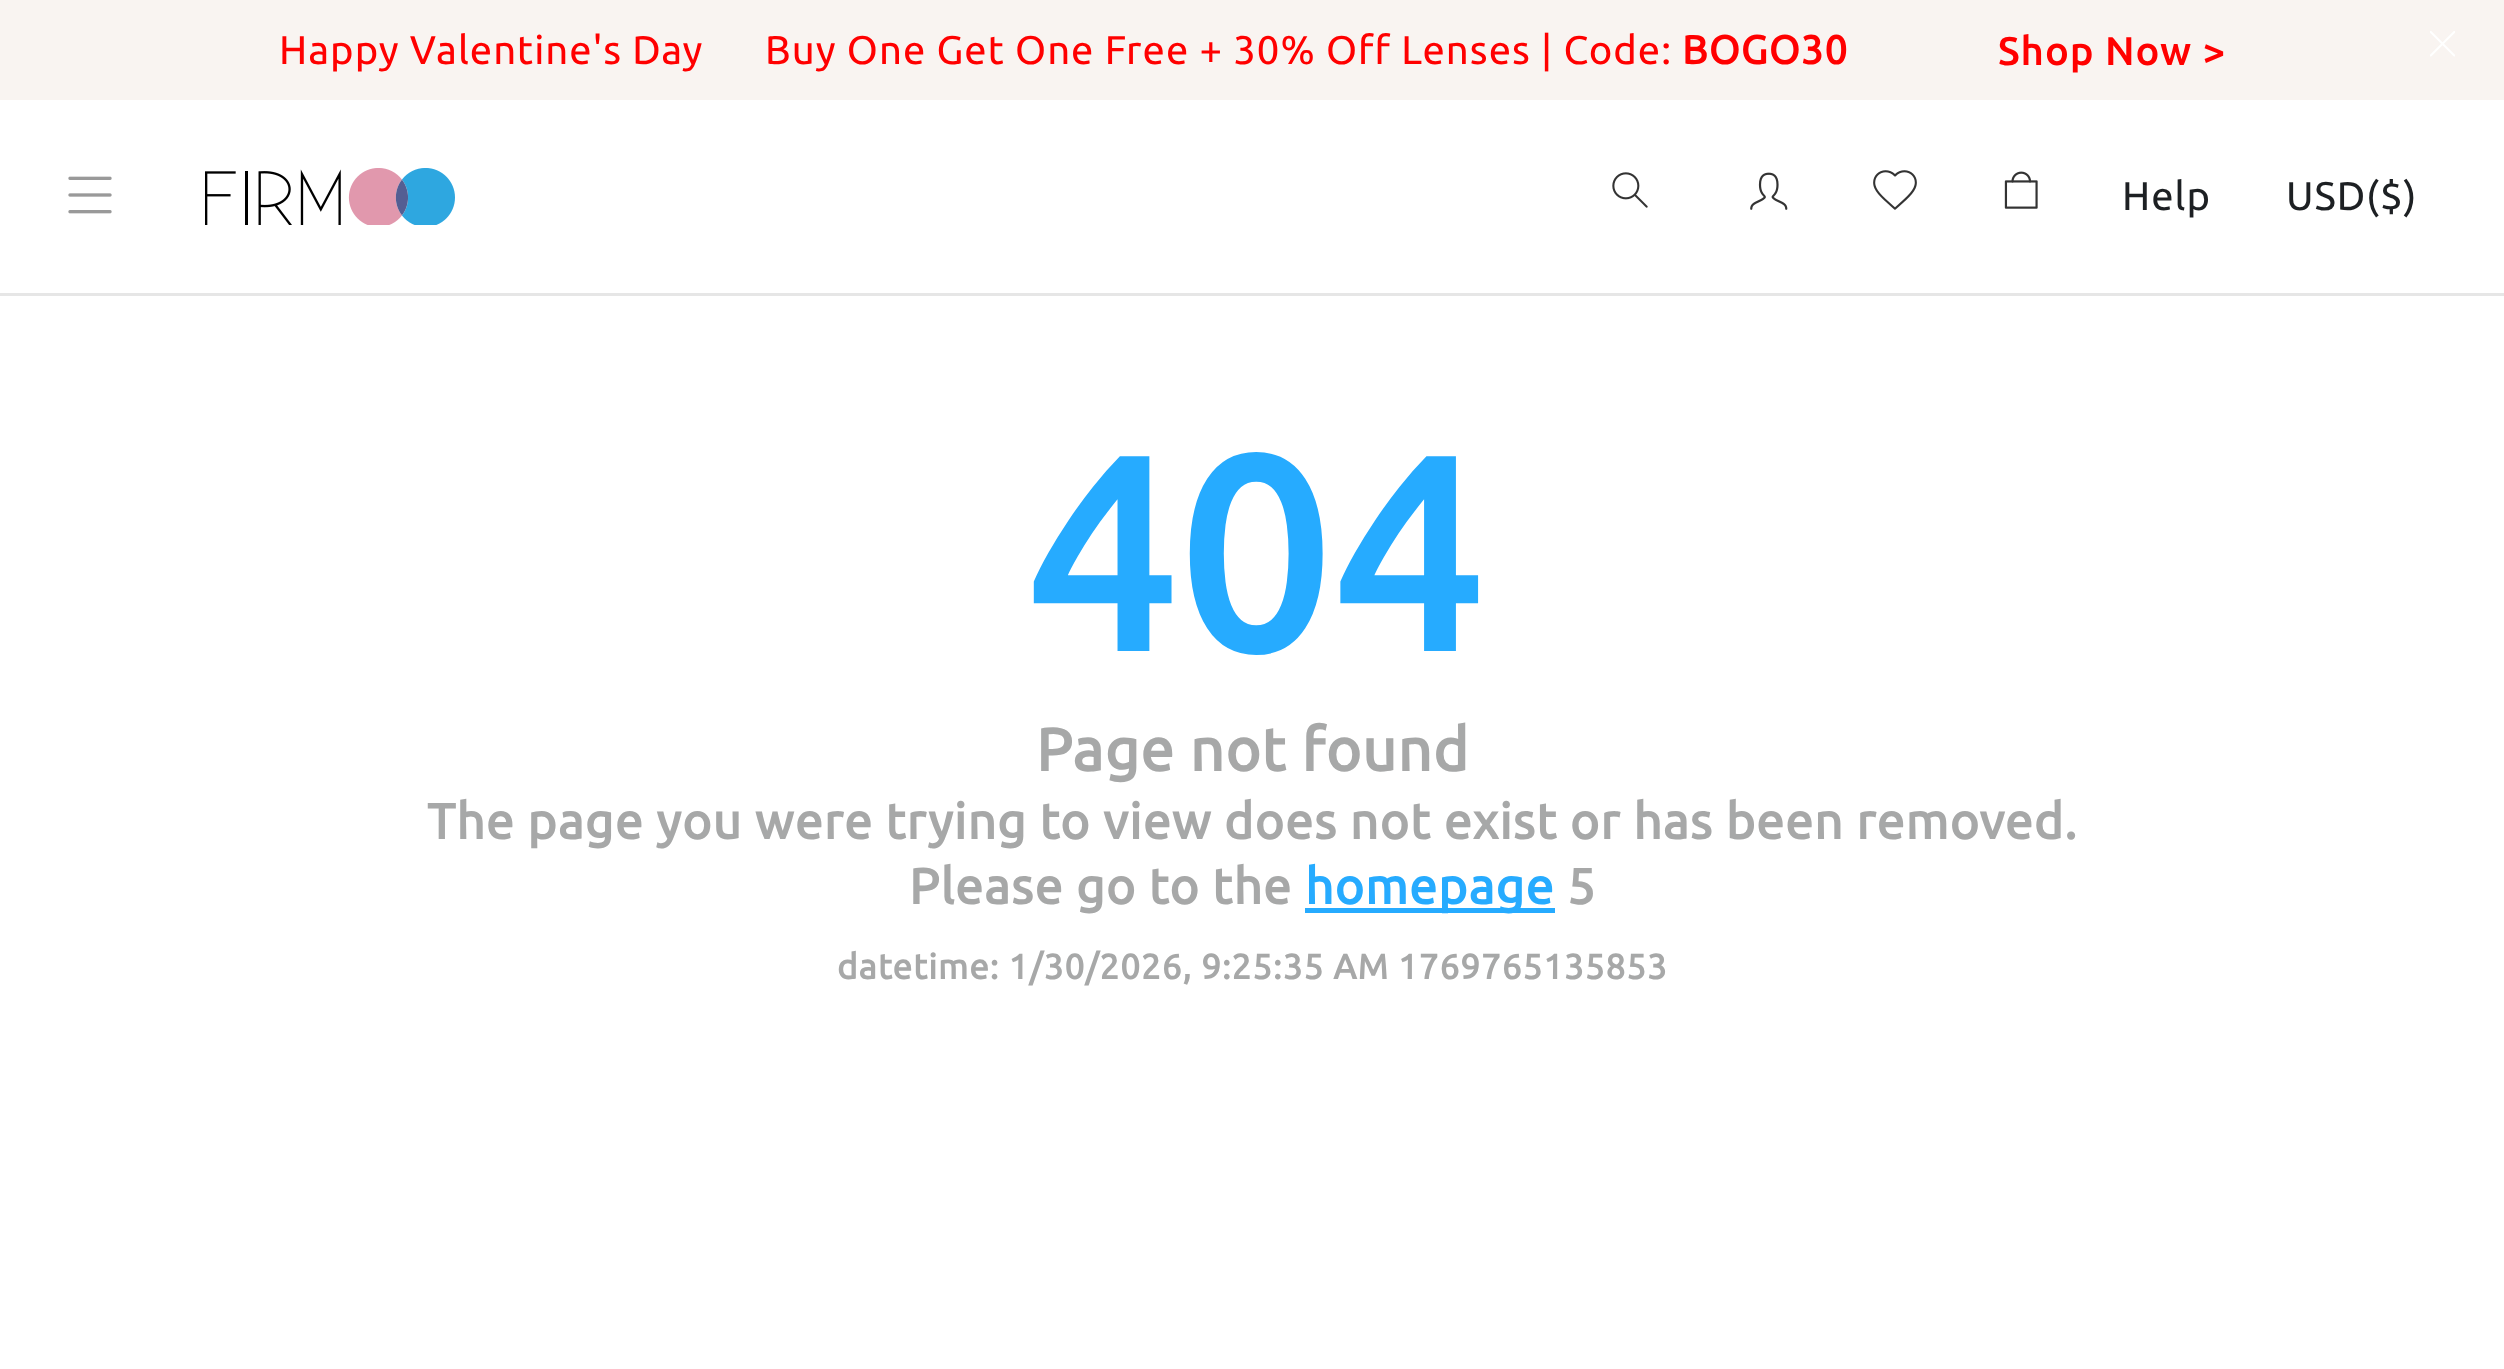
<?xml version="1.0" encoding="UTF-8"?>
<svg xmlns="http://www.w3.org/2000/svg" width="2504" height="1369">
    <rect width="100%" height="100%" fill="#FFFFFF"/>
    <rect x="0" y="0" width="2504" height="100" fill="#F9F4F1"/>
    <text x="279" y="64" font-family="Ubuntu" font-size="40" letter-spacing="1" fill="#FF0000">Happy Valentine's Day</text>
    <text x="765" y="64" font-family="Ubuntu" font-size="40" letter-spacing="1" fill="#FF0000">Buy One Get One Free + 30% Off Lenses | Code:</text>
    <text x="1682" y="64" font-family="Ubuntu" font-size="40" font-weight="700" letter-spacing="1" fill="#FF0000">BOGO30</text>
    <text x="1998" y="65" font-family="Ubuntu" font-size="40" font-weight="500" letter-spacing="1" fill="#FF0000">Shop Now &gt;</text>
    <image x="2430" y="31" width="25" height="26" href="img_01.png"/>
    <rect x="0" y="293" width="2504" height="3" fill="#E6E6E6"/>
    <image x="68" y="176" width="44" height="38" href="img_02.png"/>
    <image x="205" y="168" width="250" height="57" href="img_03.png"/>
    <image x="1612" y="172" width="36" height="36" href="img_04.png"/>
    <image x="1750" y="172" width="38" height="38" href="img_05.png"/>
    <image x="1873" y="170" width="44" height="40" href="img_06.png"/>
    <image x="2004" y="171" width="34" height="38" href="img_07.png"/>
    <text x="2122" y="210" font-family="Ubuntu" font-size="40" letter-spacing="1" fill="#1D2023">Help</text>
    <text x="2286" y="210" font-family="Ubuntu" font-size="40" letter-spacing="1" fill="#1D2023">USD</text>
    <text x="2366" y="210" font-family="Ubuntu" font-size="40" letter-spacing="1" fill="#1D2023">($)</text>
    <text x="1023" y="651" font-family="Ubuntu" font-size="270" font-weight="700" letter-spacing="1" fill="#26ABFF">404</text>
    <text x="1036" y="771" font-family="Ubuntu" font-size="60" font-weight="700" letter-spacing="1" fill="#A7A8A8">Page not found</text>
    <text x="427" y="839" font-family="Ubuntu" font-size="50" font-weight="700" letter-spacing="1" fill="#A7A8A8">The page you were trying to view does not exist or has been removed.</text>
    <text x="909" y="904" font-family="Ubuntu" font-size="50" font-weight="700" letter-spacing="1" fill="#A7A8A8">Please go to the</text>
    <rect x="1305" y="908" width="250" height="5" fill="#26ABFF"/>
    <text x="1305" y="904" font-family="Ubuntu" font-size="50" font-weight="700" letter-spacing="1" fill="#26ABFF">homepage</text>
    <text x="1567" y="904" font-family="Ubuntu" font-size="50" font-weight="700" letter-spacing="1" fill="#A7A8A8">5</text>
    <text x="837" y="979" font-family="Ubuntu" font-size="35" font-weight="700" letter-spacing="1" fill="#A7A8A8">datetime: 1/30/2026, 9:25:35 AM 1769765135853</text>
</svg>
